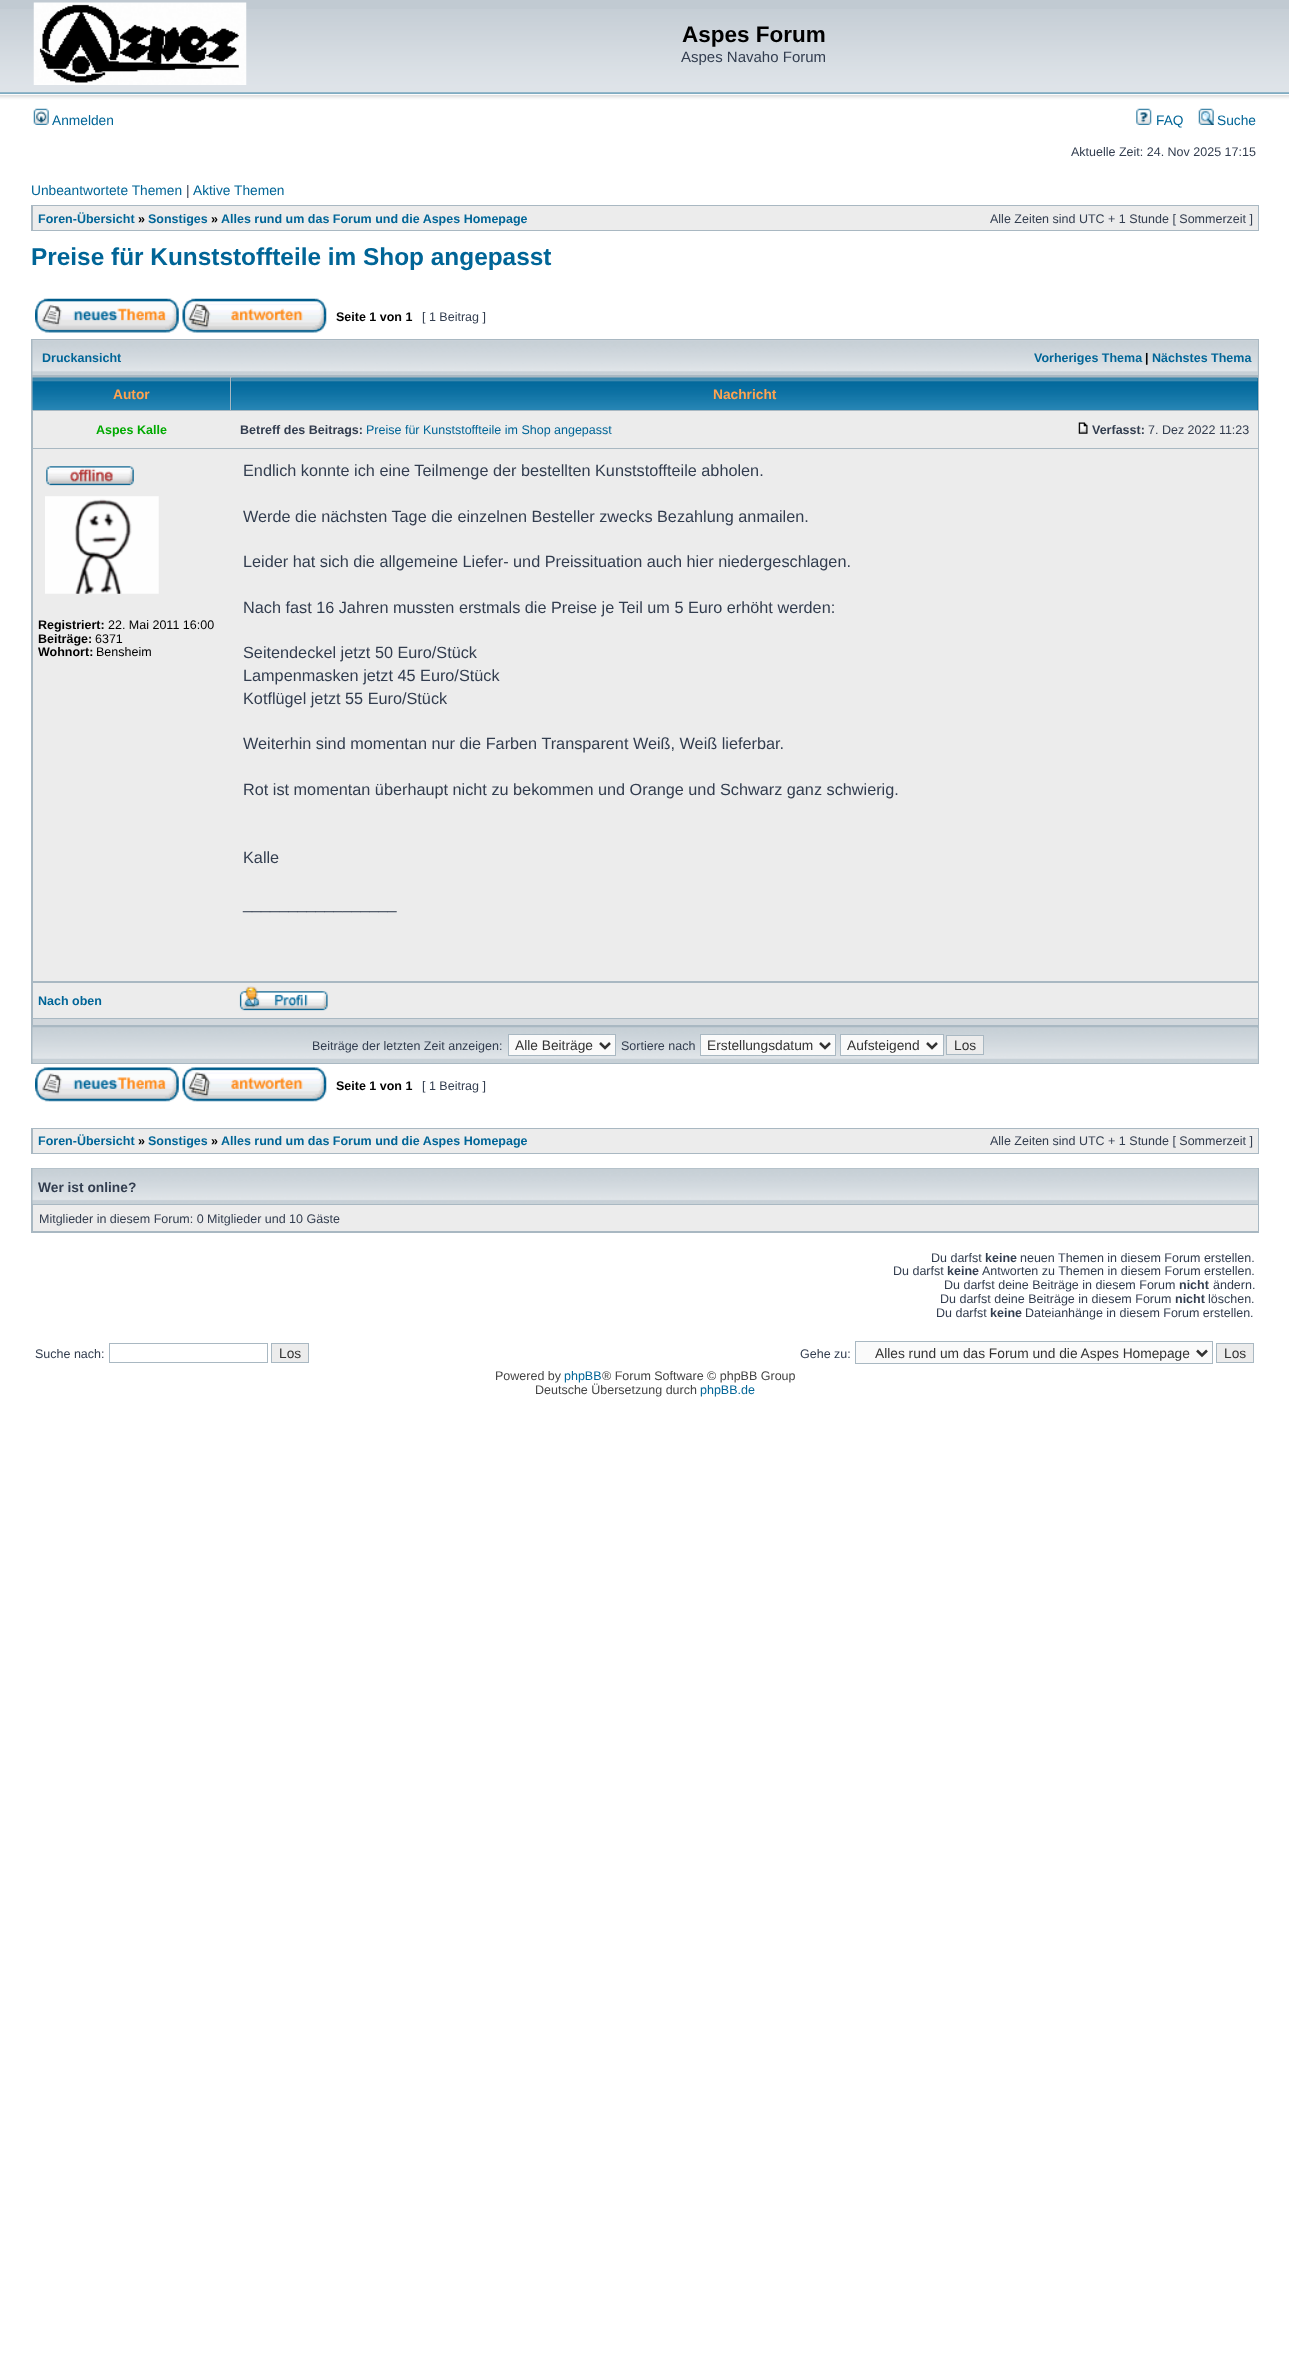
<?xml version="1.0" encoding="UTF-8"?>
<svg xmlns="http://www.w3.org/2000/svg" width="1289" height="2380">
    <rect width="100%" height="100%" fill="#FFFFFF"/>
    <rect x="0" y="0" width="1289" height="9" fill="#C1CAD2"/>
    <image x="0" y="9" width="1289" height="97" href="img_01.png"/>
    <image x="33" y="2" width="214" height="83" href="img_02.png"/>
    <text x="682" y="42" font-family="Liberation Sans" font-size="22.5" font-weight="700" fill="#000000">Aspes Forum</text>
    <text x="681" y="62" font-family="Liberation Sans" font-size="15" fill="#323D4F">Aspes Navaho Forum</text>
    <image x="33" y="108" width="16" height="17" href="img_03.png"/>
    <text x="52" y="125" font-family="Liberation Sans" font-size="13.75" fill="#006597">Anmelden</text>
    <image x="1136" y="108" width="16" height="17" href="img_04.png"/>
    <text x="1156" y="125" font-family="Liberation Sans" font-size="13.75" fill="#006597">FAQ</text>
    <image x="1198" y="108" width="16" height="17" href="img_05.png"/>
    <text x="1217" y="125" font-family="Liberation Sans" font-size="13.75" fill="#006597">Suche</text>
    <text x="1071" y="156" font-family="Liberation Sans" font-size="12.5" fill="#323D4F">Aktuelle Zeit: 24. Nov 2025 17:15</text>
    <text x="31" y="195" font-family="Liberation Sans" font-size="13.75" fill="#006597">Unbeantwortete Themen</text>
    <text x="186" y="195" font-family="Liberation Sans" font-size="13.75" fill="#323D4F">|</text>
    <text x="193" y="195" font-family="Liberation Sans" font-size="13.75" fill="#006597">Aktive Themen</text>
    <rect x="31" y="205" width="1228" height="26" fill="#A9B8C2"/>
    <rect x="33" y="206" width="1225" height="24" fill="#ECECEC"/>
    <text x="38" y="223" font-family="Liberation Sans" font-size="12.5" font-weight="700" fill="#006597">Foren-Übersicht</text>
    <text x="138" y="223" font-family="Liberation Sans" font-size="12.5" font-weight="700" fill="#000000">»</text>
    <text x="148" y="223" font-family="Liberation Sans" font-size="12.5" font-weight="700" fill="#006597">Sonstiges</text>
    <text x="211" y="223" font-family="Liberation Sans" font-size="12.5" font-weight="700" fill="#000000">»</text>
    <text x="221" y="223" font-family="Liberation Sans" font-size="12.5" font-weight="700" fill="#006597">Alles rund um das Forum und die Aspes Homepage</text>
    <text x="990" y="223" font-family="Liberation Sans" font-size="12.5" fill="#323D4F">Alle Zeiten sind UTC + 1 Stunde [ Sommerzeit ]</text>
    <text x="31" y="265" font-family="Liberation Sans" font-size="24.4" font-weight="700" fill="#006597">Preise für Kunststoffteile im Shop angepasst</text>
    <image x="35" y="298" width="144" height="35" href="img_06.png"/>
    <image x="182" y="298" width="145" height="35" href="img_07.png"/>
    <text x="336" y="321" font-family="Liberation Sans" font-size="12.5" font-weight="700" fill="#000000">Seite 1 von 1</text>
    <text x="422" y="321" font-family="Liberation Sans" font-size="12.5" fill="#323D4F">[ 1 Beitrag ]</text>
    <rect x="31" y="339" width="1228" height="725" fill="#A9B8C2"/>
    <rect x="1257" y="340" width="1" height="35" fill="#C7D0D7"/>
    <image x="32" y="340" width="1226" height="35" href="img_08.png"/>
    <text x="42" y="362" font-family="Liberation Sans" font-size="12.5" font-weight="700" fill="#006597">Druckansicht</text>
    <text x="1034" y="362" font-family="Liberation Sans" font-size="12.5" font-weight="700" fill="#006597">Vorheriges Thema</text>
    <text x="1145" y="362" font-family="Liberation Sans" font-size="12.5" font-weight="700" fill="#000000">|</text>
    <text x="1152" y="362" font-family="Liberation Sans" font-size="12.5" font-weight="700" fill="#006597">Nächstes Thema</text>
    <image x="32" y="377" width="198" height="33" href="img_09.png"/>
    <text x="113" y="399" font-family="Liberation Sans" font-size="13.75" font-weight="700" fill="#FFA34F">Autor</text>
    <rect x="231" y="378" width="1027" height="32" fill="#006699"/>
    <image x="231" y="377" width="1027" height="33" href="img_10.png"/>
    <text x="713" y="399" font-family="Liberation Sans" font-size="13.75" font-weight="700" fill="#FFA34F">Nachricht</text>
    <rect x="33" y="411" width="1225" height="37" fill="#ECECEC"/>
    <text x="96" y="434" font-family="Liberation Sans" font-size="12.5" font-weight="700" fill="#00AA00">Aspes Kalle</text>
    <text x="240" y="434" font-family="Liberation Sans" font-size="12.5" font-weight="700" fill="#323D4F">Betreff des Beitrags:</text>
    <text x="366" y="434" font-family="Liberation Sans" font-size="12.5" fill="#006597">Preise für Kunststoffteile im Shop angepasst</text>
    <image x="1078" y="422" width="10" height="12" href="img_11.png"/>
    <text x="1092" y="434" font-family="Liberation Sans" font-size="12.5" font-weight="700" fill="#323D4F">Verfasst:</text>
    <text x="1148" y="434" font-family="Liberation Sans" font-size="12.5" fill="#323D4F">7. Dez 2022 11:23</text>
    <rect x="33" y="449" width="1225" height="532" fill="#ECECEC"/>
    <image x="46" y="466" width="88" height="20" href="img_12.png"/>
    <image x="45" y="496" width="114" height="98" href="img_13.png"/>
    <text x="38" y="629" font-family="Liberation Sans" font-size="12.5" font-weight="700" fill="#000000">Registriert:</text>
    <text x="108" y="629" font-family="Liberation Sans" font-size="12.5" fill="#000000">22. Mai 2011 16:00</text>
    <text x="38" y="643" font-family="Liberation Sans" font-size="12.5" font-weight="700" fill="#000000">Beiträge:</text>
    <text x="95" y="643" font-family="Liberation Sans" font-size="12.5" fill="#000000">6371</text>
    <text x="38" y="656" font-family="Liberation Sans" font-size="12.5" font-weight="700" fill="#000000">Wohnort:</text>
    <text x="96" y="656" font-family="Liberation Sans" font-size="12.5" fill="#000000">Bensheim</text>
    <text x="243" y="476" font-family="Liberation Sans" font-size="16.25" fill="#323D4F">Endlich konnte ich eine Teilmenge der bestellten Kunststoffteile abholen.</text>
    <text x="243" y="522" font-family="Liberation Sans" font-size="16.25" fill="#323D4F">Werde die nächsten Tage die einzelnen Besteller zwecks Bezahlung anmailen.</text>
    <text x="243" y="567" font-family="Liberation Sans" font-size="16.25" fill="#323D4F">Leider hat sich die allgemeine Liefer- und Preissituation auch hier niedergeschlagen.</text>
    <text x="243" y="613" font-family="Liberation Sans" font-size="16.25" fill="#323D4F">Nach fast 16 Jahren mussten erstmals die Preise je Teil um 5 Euro erhöht werden:</text>
    <text font-family="Liberation Sans" font-size="16.25" fill="#323D4F">
        <tspan x="243" y="658">Seitendeckel jetzt 50 Euro/Stück</tspan>
        <tspan x="243" y="681">Lampenmasken jetzt 45 Euro/Stück</tspan>
        <tspan x="243" y="704">Kotflügel jetzt 55 Euro/Stück</tspan>
    </text>
    <text x="243" y="749" font-family="Liberation Sans" font-size="16.25" fill="#323D4F">Weiterhin sind momentan nur die Farben Transparent Weiß, Weiß lieferbar.</text>
    <text x="243" y="795" font-family="Liberation Sans" font-size="16.25" fill="#323D4F">Rot ist momentan überhaupt nicht zu bekommen und Orange und Schwarz ganz schwierig.</text>
    <text x="243" y="863" font-family="Liberation Sans" font-size="16.25" fill="#323D4F">Kalle</text>
    <text x="243" y="909" font-family="Liberation Sans" font-size="16.25" fill="#323D4F">_________________</text>
    <rect x="33" y="983" width="1225" height="35" fill="#ECECEC"/>
    <text x="38" y="1005" font-family="Liberation Sans" font-size="12.5" font-weight="700" fill="#006597">Nach oben</text>
    <image x="239" y="986" width="89" height="25" href="img_14.png"/>
    <rect x="33" y="1019" width="1225" height="6" fill="#D1D7DC"/>
    <rect x="33" y="1028" width="1225" height="35" fill="#C7D0D7"/>
    <image x="32" y="1027" width="1226" height="36" href="img_15.png"/>
    <text x="312" y="1050" font-family="Liberation Sans" font-size="12.5" fill="#323D4F">Beiträge der letzten Zeit anzeigen:</text>
    <rect x="508.5" y="1034.5" width="107" height="21" fill="#FAFAFA" stroke="#A9B8C2"/>
    <path d="M 600 1043 L 605 1048 L 610 1043" fill="none" stroke="#333333" stroke-width="2.5"/>
    <text x="515" y="1050" font-family="Liberation Sans" font-size="13.75" fill="#333333">Alle Beiträge</text>
    <text x="621" y="1050" font-family="Liberation Sans" font-size="12.5" fill="#323D4F">Sortiere nach</text>
    <rect x="700.5" y="1034.5" width="135" height="21" fill="#FAFAFA" stroke="#A9B8C2"/>
    <path d="M 820 1043 L 825 1048 L 830 1043" fill="none" stroke="#333333" stroke-width="2.5"/>
    <text x="707" y="1050" font-family="Liberation Sans" font-size="13.75" fill="#333333">Erstellungsdatum</text>
    <rect x="840.5" y="1034.5" width="103" height="21" fill="#FAFAFA" stroke="#A9B8C2"/>
    <path d="M 927 1043 L 932 1048 L 937 1043" fill="none" stroke="#333333" stroke-width="2.5"/>
    <text x="847" y="1050" font-family="Liberation Sans" font-size="13.75" fill="#333333">Aufsteigend</text>
    <rect x="946.5" y="1035.5" width="37" height="19" fill="#ECECEC" stroke="#A9B8C2"/>
    <text x="954" y="1050" font-family="Liberation Sans" font-size="13.75" fill="#333333">Los</text>
    <image x="35" y="1067" width="144" height="35" href="img_16.png"/>
    <image x="182" y="1067" width="145" height="35" href="img_17.png"/>
    <text x="336" y="1090" font-family="Liberation Sans" font-size="12.5" font-weight="700" fill="#000000">Seite 1 von 1</text>
    <text x="422" y="1090" font-family="Liberation Sans" font-size="12.5" fill="#323D4F">[ 1 Beitrag ]</text>
    <rect x="31" y="1128" width="1228" height="26" fill="#A9B8C2"/>
    <rect x="33" y="1129" width="1225" height="24" fill="#ECECEC"/>
    <text x="38" y="1145" font-family="Liberation Sans" font-size="12.5" font-weight="700" fill="#006597">Foren-Übersicht</text>
    <text x="138" y="1145" font-family="Liberation Sans" font-size="12.5" font-weight="700" fill="#000000">»</text>
    <text x="148" y="1145" font-family="Liberation Sans" font-size="12.5" font-weight="700" fill="#006597">Sonstiges</text>
    <text x="211" y="1145" font-family="Liberation Sans" font-size="12.5" font-weight="700" fill="#000000">»</text>
    <text x="221" y="1145" font-family="Liberation Sans" font-size="12.5" font-weight="700" fill="#006597">Alles rund um das Forum und die Aspes Homepage</text>
    <text x="990" y="1145" font-family="Liberation Sans" font-size="12.5" fill="#323D4F">Alle Zeiten sind UTC + 1 Stunde [ Sommerzeit ]</text>
    <rect x="31" y="1168" width="1228" height="65" fill="#A9B8C2"/>
    <rect x="33" y="1169" width="1225" height="35" fill="#C7D0D7"/>
    <image x="32" y="1168" width="1226" height="36" href="img_18.png"/>
    <text x="38" y="1192" font-family="Liberation Sans" font-size="13.75" font-weight="700" fill="#323D4F">Wer ist online?</text>
    <rect x="33" y="1205" width="1225" height="26" fill="#ECECEC"/>
    <text x="39" y="1223" font-family="Liberation Sans" font-size="12.5" fill="#323D4F">Mitglieder in diesem Forum: 0 Mitglieder und 10 Gäste</text>
    <text x="931" y="1262" font-family="Liberation Sans" font-size="12.5" fill="#323D4F">Du darfst</text>
    <text x="985" y="1262" font-family="Liberation Sans" font-size="12.5" font-weight="700" fill="#323D4F">keine</text>
    <text x="1020" y="1262" font-family="Liberation Sans" font-size="12.5" fill="#323D4F">neuen Themen in diesem Forum erstellen.</text>
    <text x="893" y="1275" font-family="Liberation Sans" font-size="12.5" fill="#323D4F">Du darfst</text>
    <text x="947" y="1275" font-family="Liberation Sans" font-size="12.5" font-weight="700" fill="#323D4F">keine</text>
    <text x="982" y="1275" font-family="Liberation Sans" font-size="12.5" fill="#323D4F">Antworten zu Themen in diesem Forum erstellen.</text>
    <text x="944" y="1289" font-family="Liberation Sans" font-size="12.5" fill="#323D4F">Du darfst deine Beiträge in diesem Forum</text>
    <text x="1179" y="1289" font-family="Liberation Sans" font-size="12.5" font-weight="700" fill="#323D4F">nicht</text>
    <text x="1213" y="1289" font-family="Liberation Sans" font-size="12.5" fill="#323D4F">ändern.</text>
    <text x="940" y="1303" font-family="Liberation Sans" font-size="12.5" fill="#323D4F">Du darfst deine Beiträge in diesem Forum</text>
    <text x="1175" y="1303" font-family="Liberation Sans" font-size="12.5" font-weight="700" fill="#323D4F">nicht</text>
    <text x="1208" y="1303" font-family="Liberation Sans" font-size="12.5" fill="#323D4F">löschen.</text>
    <text x="936" y="1317" font-family="Liberation Sans" font-size="12.5" fill="#323D4F">Du darfst</text>
    <text x="990" y="1317" font-family="Liberation Sans" font-size="12.5" font-weight="700" fill="#323D4F">keine</text>
    <text x="1025" y="1317" font-family="Liberation Sans" font-size="12.5" fill="#323D4F">Dateianhänge in diesem Forum erstellen.</text>
    <text x="35" y="1358" font-family="Liberation Sans" font-size="12.5" fill="#323D4F">Suche nach:</text>
    <rect x="109.5" y="1343.5" width="158" height="19" fill="none" stroke="#A9B8C2"/>
    <rect x="271.5" y="1343.5" width="37" height="19" fill="#ECECEC" stroke="#A9B8C2"/>
    <text x="279" y="1358" font-family="Liberation Sans" font-size="13.75" fill="#333333">Los</text>
    <text x="800" y="1358" font-family="Liberation Sans" font-size="12.5" fill="#323D4F">Gehe zu:</text>
    <rect x="855.5" y="1341.5" width="357" height="22" fill="#FAFAFA" stroke="#A9B8C2"/>
    <path d="M 1197 1350.5 L 1202 1355.5 L 1207 1350.5" fill="none" stroke="#333333" stroke-width="2.5"/>
    <text x="875" y="1358" font-family="Liberation Sans" font-size="13.75" fill="#333333">Alles rund um das Forum und die Aspes Homepage</text>
    <rect x="1216.5" y="1343.5" width="37" height="19" fill="#ECECEC" stroke="#A9B8C2"/>
    <text x="1224" y="1358" font-family="Liberation Sans" font-size="13.75" fill="#333333">Los</text>
    <text x="495" y="1380" font-family="Liberation Sans" font-size="12.5" fill="#444444">Powered by</text>
    <text x="564" y="1380" font-family="Liberation Sans" font-size="12.5" fill="#006597">phpBB</text>
    <text x="602" y="1380" font-family="Liberation Sans" font-size="12.5" fill="#444444">® Forum Software © phpBB Group</text>
    <text x="535" y="1394" font-family="Liberation Sans" font-size="12.5" fill="#444444">Deutsche Übersetzung durch</text>
    <text x="700" y="1394" font-family="Liberation Sans" font-size="12.5" fill="#006597">phpBB.de</text>
</svg>
